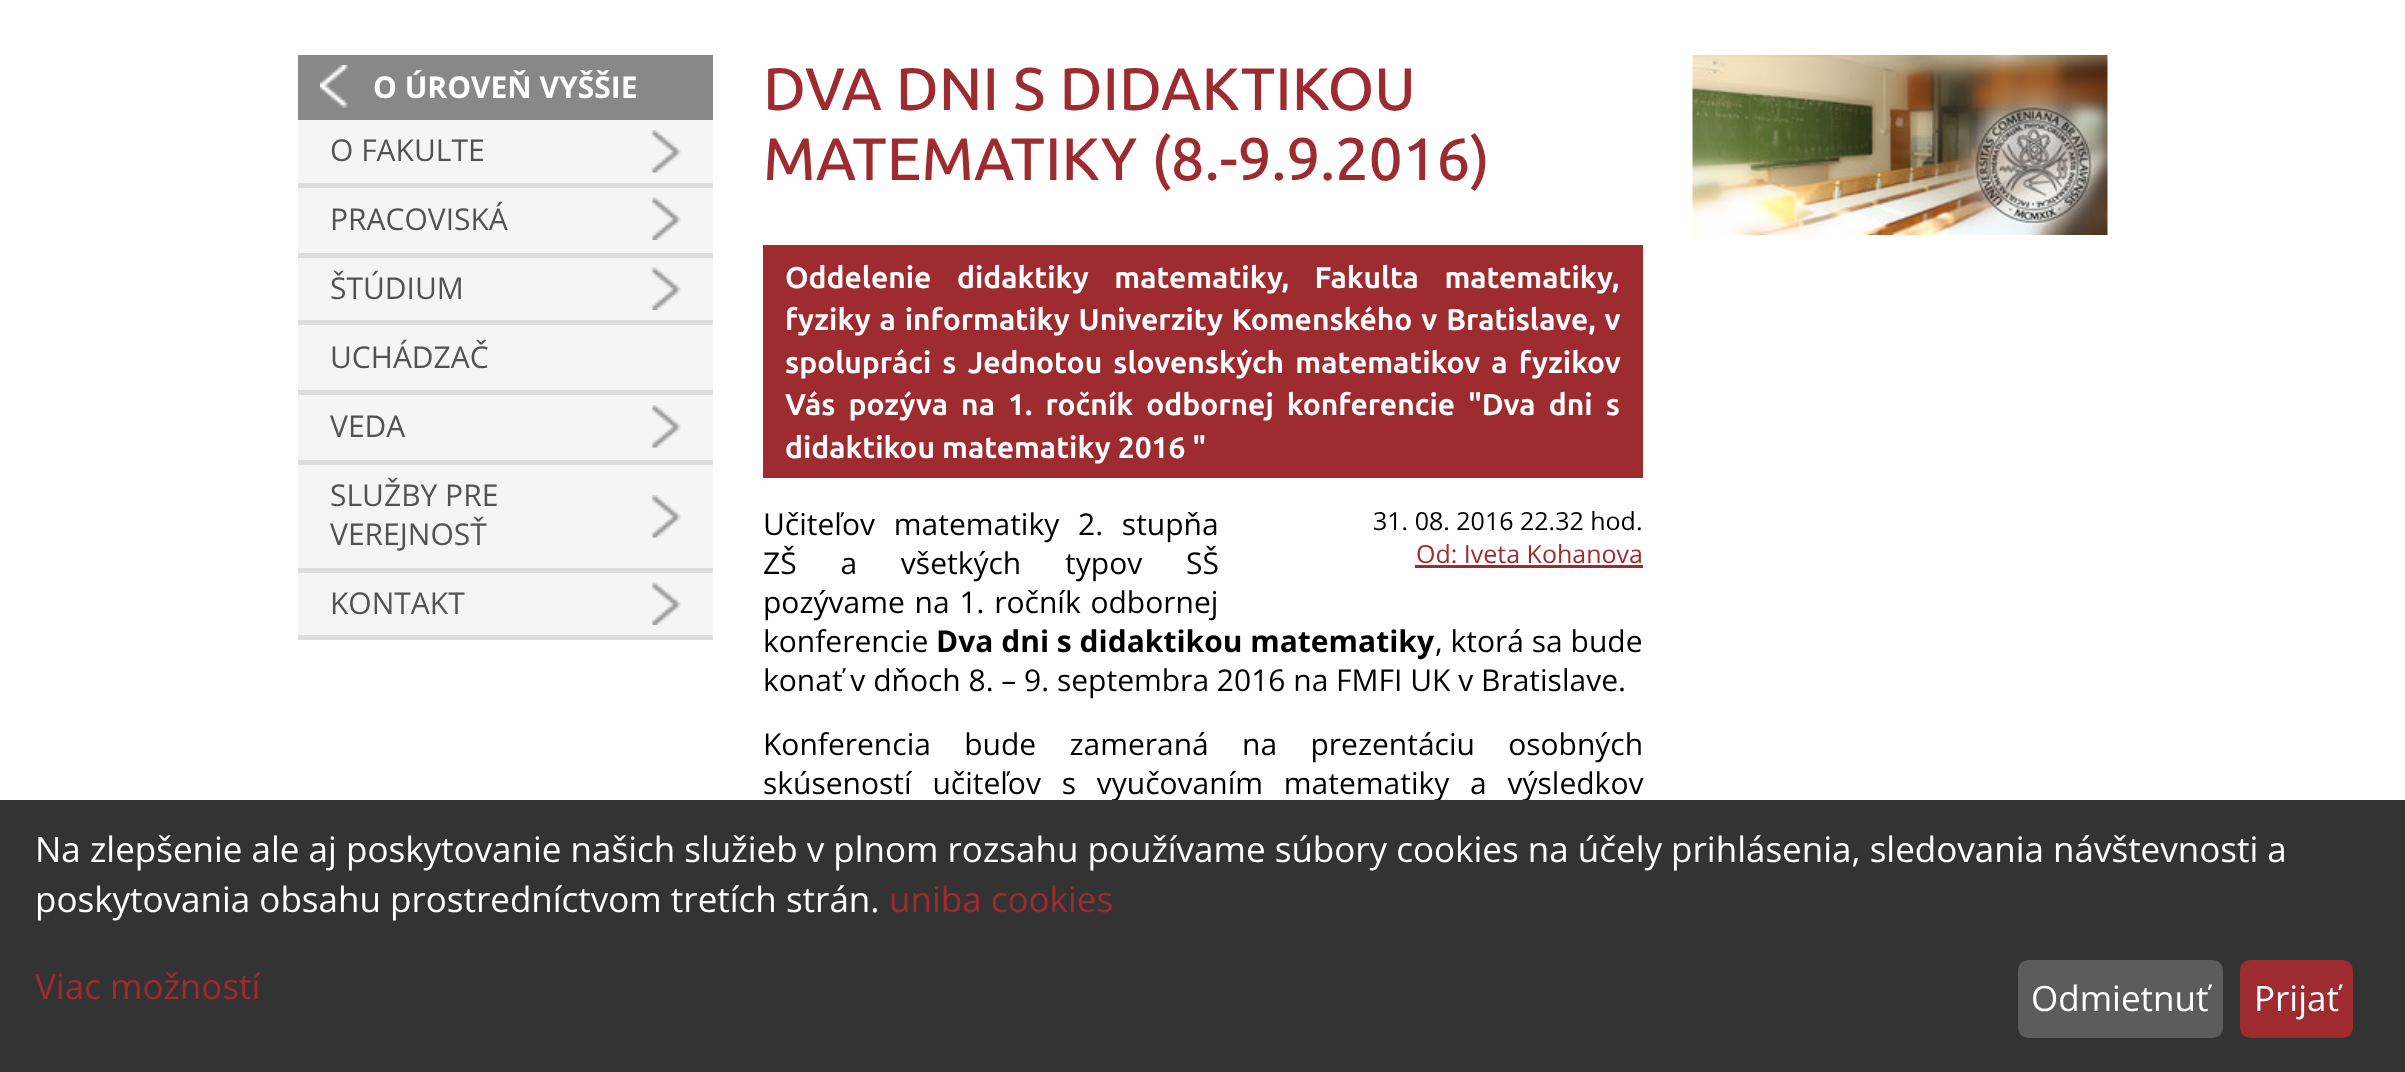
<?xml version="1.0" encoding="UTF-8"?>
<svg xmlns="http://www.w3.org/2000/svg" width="2405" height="1072">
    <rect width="100%" height="100%" fill="#FFFFFF"/>
    <rect x="298" y="120" width="415" height="515" fill="#F5F5F5"/>
    <rect x="298" y="55" width="415" height="65" fill="#888888"/>
    <image x="320" y="65" width="28" height="43" href="img_01.png"/>
    <text x="373" y="98" font-family="Open Sans" font-size="30" font-weight="700" fill="#FFFFFF">O ÚROVEŇ VYŠŠIE</text>
    <rect x="298" y="183" width="415" height="5" fill="#DDDDDD"/>
    <image x="651" y="130" width="30" height="43" href="img_02.png"/>
    <text x="330" y="161" font-family="Open Sans" font-size="30" fill="#535250">O FAKULTE</text>
    <rect x="298" y="253" width="415" height="5" fill="#DDDDDD"/>
    <image x="651" y="197" width="30" height="43" href="img_03.png"/>
    <text x="330" y="230" font-family="Open Sans" font-size="30" fill="#535250">PRACOVISKÁ</text>
    <rect x="298" y="320" width="415" height="5" fill="#DDDDDD"/>
    <image x="651" y="267" width="30" height="43" href="img_03.png"/>
    <text x="330" y="299" font-family="Open Sans" font-size="30" fill="#535250">ŠTÚDIUM</text>
    <rect x="298" y="390" width="415" height="5" fill="#DDDDDD"/>
    <text x="330" y="368" font-family="Open Sans" font-size="30" fill="#535250">UCHÁDZAČ</text>
    <rect x="298" y="460" width="415" height="5" fill="#DDDDDD"/>
    <image x="651" y="405" width="30" height="43" href="img_02.png"/>
    <text x="330" y="437" font-family="Open Sans" font-size="30" fill="#535250">VEDA</text>
    <rect x="298" y="568" width="415" height="5" fill="#DDDDDD"/>
    <image x="651" y="495" width="30" height="43" href="img_02.png"/>
    <text font-family="Open Sans" font-size="30" fill="#535250">
        <tspan x="330" y="506">SLUŽBY PRE</tspan>
        <tspan x="330" y="545">VEREJNOSŤ</tspan>
    </text>
    <rect x="298" y="635" width="415" height="5" fill="#DDDDDD"/>
    <image x="651" y="582" width="30" height="43" href="img_03.png"/>
    <text x="330" y="614" font-family="Open Sans" font-size="30" fill="#535250">KONTAKT</text>
    <text font-family="Ubuntu" font-size="60" font-weight="500" fill="#9E2B2F">
        <tspan x="763" y="110">DVA DNI S DIDAKTIKOU</tspan>
        <tspan x="763" y="180">MATEMATIKY (8.-9.9.2016)</tspan>
    </text>
    <rect x="763" y="245" width="880" height="233" fill="#9E2B2F"/>
    <text font-family="Ubuntu" font-size="30" font-weight="700" fill="#FFFFFF">
        <tspan x="785" y="288" word-spacing="18.5">Oddelenie didaktiky matematiky, Fakulta matematiky,</tspan>
        <tspan x="785" y="330" word-spacing="1.75">fyziky a informatiky Univerzity Komenského v Bratislave, v</tspan>
        <tspan x="785" y="373" word-spacing="4">spolupráci s Jednotou slovenských matematikov a fyzikov</tspan>
        <tspan x="785" y="415" word-spacing="6">Vás pozýva na 1. ročník odbornej konferencie "Dva dni s</tspan>
        <tspan x="785" y="458">didaktikou matematiky 2016 "</tspan>
    </text>
    <text x="1373" y="530" font-family="Open Sans" font-size="25" fill="#000000">31. 08. 2016 22.32 hod.</text>
    <text x="1416" y="563" font-family="Open Sans" font-size="25" fill="#9E2B2F">Od: Iveta Kohanova</text>
    <rect x="1415" y="565" width="228" height="3" fill="#9E2B2F"/>
    <text font-family="Open Sans" font-size="30" fill="#000000">
        <tspan x="763" y="535" word-spacing="11">Učiteľov matematiky 2. stupňa</tspan>
        <tspan x="763" y="574" word-spacing="36">ZŠ a všetkých typov SŠ</tspan>
        <tspan x="763" y="613" word-spacing="2">pozývame na 1. ročník odbornej</tspan>
        <tspan x="763" y="652">konferencie</tspan>
    </text>
    <text x="936" y="652" font-family="Open Sans" font-size="30" font-weight="700" fill="#000000">Dva dni s didaktikou matematiky</text>
    <text x="1435" y="652" font-family="Open Sans" font-size="30" fill="#000000">, ktorá sa bude</text>
    <text x="763" y="691" font-family="Open Sans" font-size="30" fill="#000000">konať v dňoch 8. – 9. septembra 2016 na FMFI UK v Bratislave.</text>
    <text font-family="Open Sans" font-size="30" fill="#000000">
        <tspan x="763" y="755" word-spacing="25.5">Konferencia bude zameraná na prezentáciu osobných</tspan>
        <tspan x="763" y="794" word-spacing="13">skúseností učiteľov s vyučovaním matematiky a výsledkov</tspan>
    </text>
    <image x="1692" y="55" width="416" height="180" href="img_04.png"/>
    <rect x="0" y="800" width="2405" height="272" fill="#333333"/>
    <text font-family="Open Sans" font-size="35" fill="#FFFFFF">
        <tspan x="35" y="862">Na zlepšenie ale aj poskytovanie našich služieb v plnom rozsahu používame súbory cookies na účely prihlásenia, sledovania návštevnosti a</tspan>
        <tspan x="35" y="912">poskytovania obsahu prostredníctvom tretích strán.</tspan>
    </text>
    <text x="889" y="912" font-family="Open Sans" font-size="35" fill="#9E2B2F">uniba cookies</text>
    <text x="35" y="999" font-family="Open Sans" font-size="35" fill="#9E2B2F">Viac možností</text>
    <rect x="2018" y="960" width="205" height="78" rx="10" fill="#5C5C5C"/>
    <text x="2031" y="1011" font-family="Open Sans" font-size="35" fill="#FFFFFF">Odmietnuť</text>
    <rect x="2240" y="960" width="113" height="78" rx="10" fill="#9E2B2F"/>
    <text x="2254" y="1011" font-family="Open Sans" font-size="35" fill="#FFFFFF">Prijať</text>
</svg>
